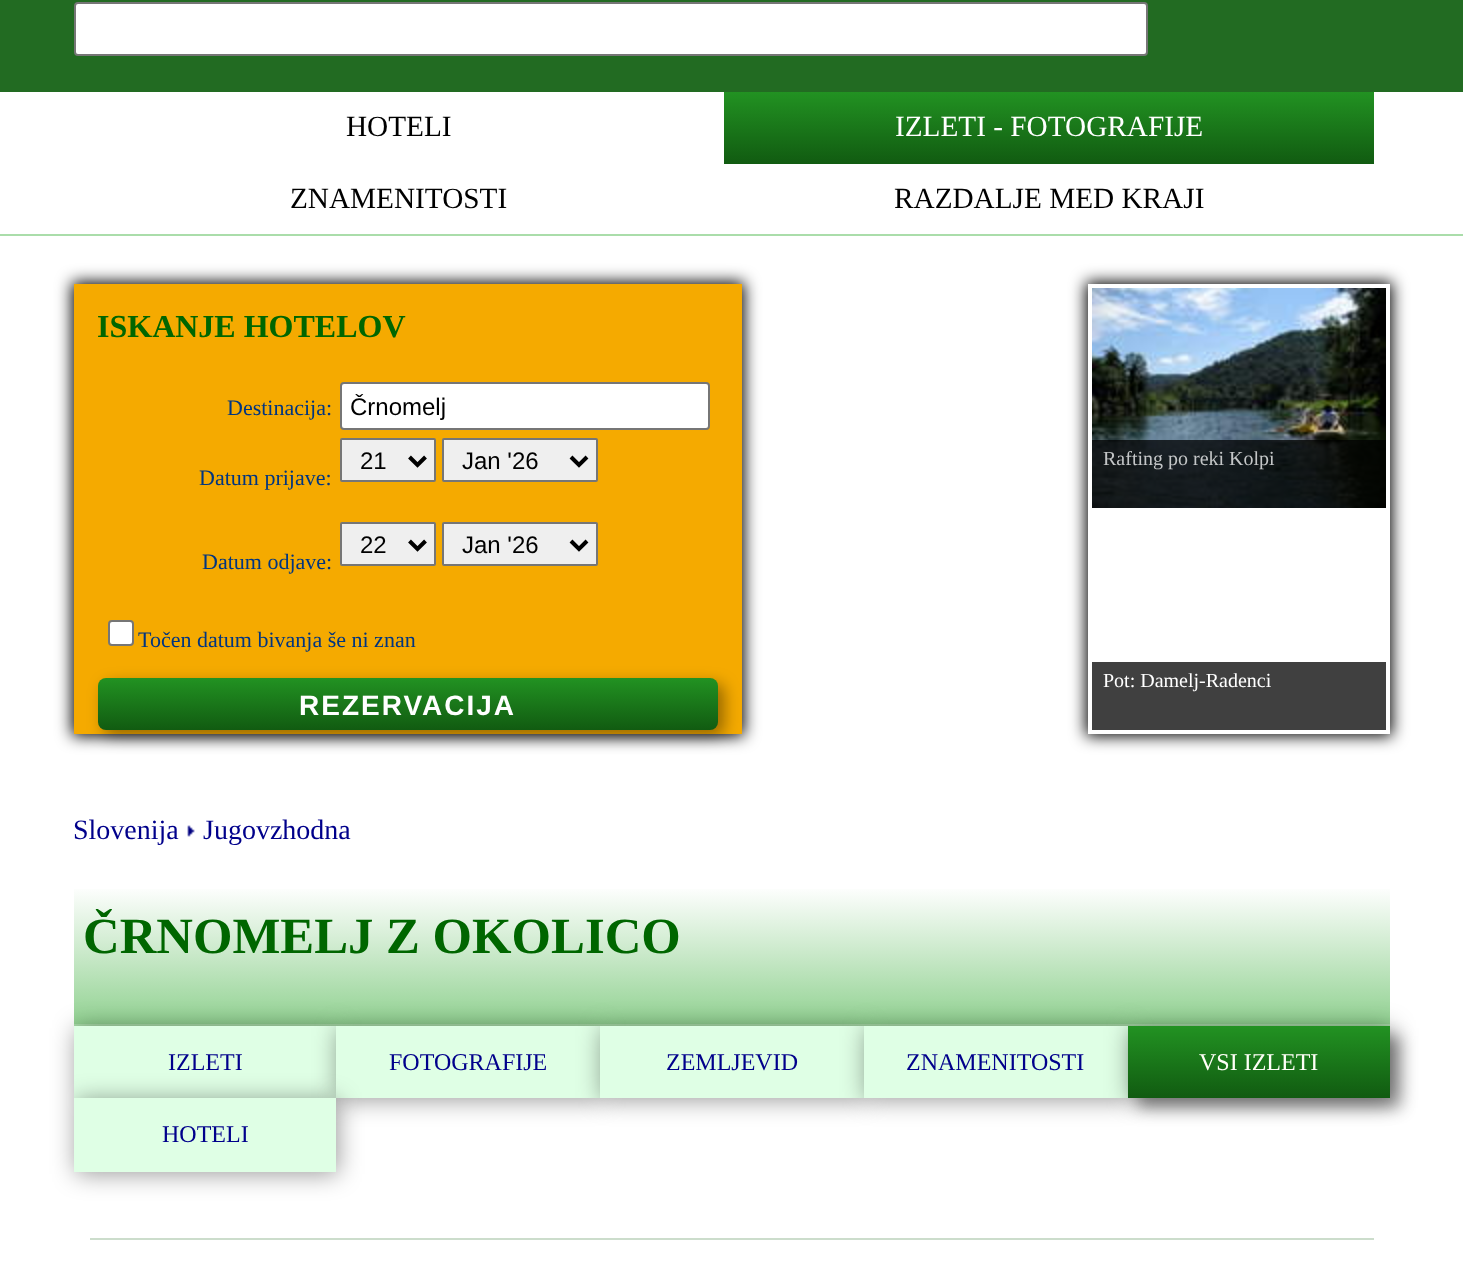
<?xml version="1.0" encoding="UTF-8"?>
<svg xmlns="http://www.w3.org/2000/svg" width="1463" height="1264">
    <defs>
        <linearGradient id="g1" gradientUnits="userSpaceOnUse" x1="1049" y1="164" x2="1049" y2="92"><stop offset="0" stop-color="#115B11"/><stop offset="1" stop-color="#229222"/></linearGradient>
        <filter id="blur1" x="-50%" y="-200%" width="200%" height="500%"><feGaussianBlur stdDeviation="8"/></filter>
        <linearGradient id="g2" gradientUnits="userSpaceOnUse" x1="408" y1="730" x2="408" y2="678"><stop offset="0" stop-color="#115B11"/><stop offset="1" stop-color="#229222"/></linearGradient>
        <clipPath id="clip1"><path d="M 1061 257 H 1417 V 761 H 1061 Z M 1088 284 H 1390 V 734 H 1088 Z" clip-rule="evenodd"/></clipPath>
        <linearGradient id="g3" gradientUnits="userSpaceOnUse" x1="732" y1="1024" x2="732" y2="886"><stop offset="0" stop-color="#92D292"/><stop offset="1" stop-color="#FFFFFF"/></linearGradient>
        <filter id="blur2" x="-50%" y="-200%" width="200%" height="500%"><feGaussianBlur stdDeviation="12"/></filter>
        <linearGradient id="g4" gradientUnits="userSpaceOnUse" x1="1259" y1="1098" x2="1259" y2="1026"><stop offset="0" stop-color="#115B11"/><stop offset="1" stop-color="#229222"/></linearGradient>
    </defs>
    <rect width="100%" height="100%" fill="#FFFFFF"/>
    <rect x="0" y="0" width="1463" height="92" fill="#226B22"/>
    <rect x="75" y="3" width="1072" height="52" rx="3" fill="#FFFFFF" stroke="#767676" stroke-width="2"/>
    <text x="346" y="136" font-family="Liberation Serif" font-size="29.25" fill="#000000">HOTELI</text>
    <rect x="724" y="92" width="650" height="72" fill="url(#g1)"/>
    <text x="895" y="136" font-family="Liberation Serif" font-size="29.25" fill="#FFFFFF">IZLETI - FOTOGRAFIJE</text>
    <text x="290" y="208" font-family="Liberation Serif" font-size="29.25" fill="#000000">ZNAMENITOSTI</text>
    <text x="894" y="208" font-family="Liberation Serif" font-size="29.25" fill="#000000">RAZDALJE MED KRAJI</text>
    <rect x="0" y="234" width="1463" height="2" fill="#AADDAA"/>
    <rect x="72" y="282" width="672" height="454" fill="#000000" filter="url(#blur1)"/>
    <rect x="74" y="284" width="668" height="450" fill="#F5AA00"/>
    <text x="97" y="337" font-family="Liberation Serif" font-size="32" font-weight="700" fill="#006600">ISKANJE HOTELOV</text>
    <text x="227" y="415" font-family="Liberation Serif" font-size="22" fill="#003580">Destinacija:</text>
    <rect x="341" y="383" width="368" height="46" rx="3" fill="#FFFFFF" stroke="#767676" stroke-width="2"/>
    <text x="350" y="415" font-family="Liberation Sans" font-size="24" fill="#000000">Črnomelj</text>
    <rect x="341" y="439" width="94" height="42" rx="1" fill="#EFEFEF" stroke="#767676" stroke-width="2"/>
    <path d="M 409.5 457 L 417.5 465 L 425.5 457" fill="none" stroke="#000000" stroke-width="4"/>
    <text x="360" y="469" font-family="Liberation Sans" font-size="24" fill="#000000">21</text>
    <rect x="443" y="439" width="154" height="42" rx="1" fill="#EFEFEF" stroke="#767676" stroke-width="2"/>
    <path d="M 571 457 L 579 465 L 587 457" fill="none" stroke="#000000" stroke-width="4"/>
    <text x="462" y="469" font-family="Liberation Sans" font-size="24" fill="#000000">Jan '26</text>
    <text x="199" y="485" font-family="Liberation Serif" font-size="22" fill="#003580">Datum prijave:</text>
    <rect x="341" y="523" width="94" height="42" rx="1" fill="#EFEFEF" stroke="#767676" stroke-width="2"/>
    <path d="M 409.5 541 L 417.5 549 L 425.5 541" fill="none" stroke="#000000" stroke-width="4"/>
    <text x="360" y="553" font-family="Liberation Sans" font-size="24" fill="#000000">22</text>
    <rect x="443" y="523" width="154" height="42" rx="1" fill="#EFEFEF" stroke="#767676" stroke-width="2"/>
    <path d="M 571 541 L 579 549 L 587 541" fill="none" stroke="#000000" stroke-width="4"/>
    <text x="462" y="553" font-family="Liberation Sans" font-size="24" fill="#000000">Jan '26</text>
    <text x="202" y="569" font-family="Liberation Serif" font-size="22" fill="#003580">Datum odjave:</text>
    <rect x="109" y="621" width="24" height="24" rx="3" fill="#FFFFFF" stroke="#767676" stroke-width="2"/>
    <text x="138" y="647" font-family="Liberation Serif" font-size="22" fill="#003580">Točen datum bivanja še ni znan</text>
    <rect x="104" y="684" width="620" height="52" rx="8" fill="#000000" fill-opacity="0.4" filter="url(#blur1)"/>
    <rect x="98" y="678" width="620" height="52" rx="8" fill="url(#g2)"/>
    <text x="299" y="715" font-family="Liberation Sans" font-size="28" font-weight="700" letter-spacing="2" fill="#FFFFFF">REZERVACIJA</text>
    <g clip-path="url(#clip1)">
        <rect x="1086" y="282" width="306" height="454" fill="#000000" filter="url(#blur1)"/>
    </g>
    <image x="1092" y="288" width="294" height="220" href="img_01.png"/>
    <rect x="1092" y="440" width="294" height="68" fill="#000000" fill-opacity="0.75"/>
    <text x="1103" y="465" font-family="Liberation Serif" font-size="20" fill="#C4C6C7">Rafting po reki Kolpi</text>
    <rect x="1092" y="662" width="294" height="68" fill="#404040"/>
    <text x="1103" y="687" font-family="Liberation Serif" font-size="20" fill="#FFFFFF">Pot: Damelj-Radenci</text>
    <text x="73" y="839" font-family="Liberation Serif" font-size="28" fill="#00008B">Slovenija</text>
    <image x="187" y="825" width="8" height="12" href="img_02.png"/>
    <text x="203" y="839" font-family="Liberation Serif" font-size="28" fill="#00008B">Jugovzhodna</text>
    <rect x="74" y="889" width="1316" height="135" fill="url(#g3)"/>
    <text x="83" y="953" font-family="Liberation Serif" font-size="50.75" font-weight="700" fill="#006600">ČRNOMELJ Z OKOLICO</text>
    <rect x="74" y="1024" width="1316" height="2" fill="#AADDAA"/>
    <rect x="76" y="1028" width="262" height="72" fill="#000000" fill-opacity="0.4" filter="url(#blur2)"/>
    <rect x="74" y="1026" width="262" height="72" fill="#DFFFE5"/>
    <text x="168" y="1070" font-family="Liberation Serif" font-size="24" fill="#00008B">IZLETI</text>
    <rect x="338" y="1028" width="264" height="72" fill="#000000" fill-opacity="0.4" filter="url(#blur2)"/>
    <rect x="336" y="1026" width="264" height="72" fill="#DFFFE5"/>
    <text x="389" y="1070" font-family="Liberation Serif" font-size="24" fill="#00008B">FOTOGRAFIJE</text>
    <rect x="602" y="1028" width="264" height="72" fill="#000000" fill-opacity="0.4" filter="url(#blur2)"/>
    <rect x="600" y="1026" width="264" height="72" fill="#DFFFE5"/>
    <text x="666" y="1070" font-family="Liberation Serif" font-size="24" fill="#00008B">ZEMLJEVID</text>
    <rect x="866" y="1028" width="264" height="72" fill="#000000" fill-opacity="0.4" filter="url(#blur2)"/>
    <rect x="864" y="1026" width="264" height="72" fill="#DFFFE5"/>
    <text x="906" y="1070" font-family="Liberation Serif" font-size="24" fill="#00008B">ZNAMENITOSTI</text>
    <rect x="1130" y="1028" width="262" height="72" fill="#000000" fill-opacity="0.4" filter="url(#blur2)"/>
    <rect x="1138" y="1036" width="262" height="72" fill="#000000" fill-opacity="0.4" filter="url(#blur1)"/>
    <rect x="1128" y="1026" width="262" height="72" fill="url(#g4)"/>
    <text x="1199" y="1070" font-family="Liberation Serif" font-size="24" fill="#FFFFF7">VSI IZLETI</text>
    <rect x="76" y="1100" width="262" height="74" fill="#000000" fill-opacity="0.4" filter="url(#blur2)"/>
    <rect x="74" y="1098" width="262" height="74" fill="#DFFFE5"/>
    <text x="162" y="1142" font-family="Liberation Serif" font-size="24" fill="#00008B">HOTELI</text>
    <rect x="90" y="1238" width="1284" height="2" fill="#CCDDCC"/>
</svg>
